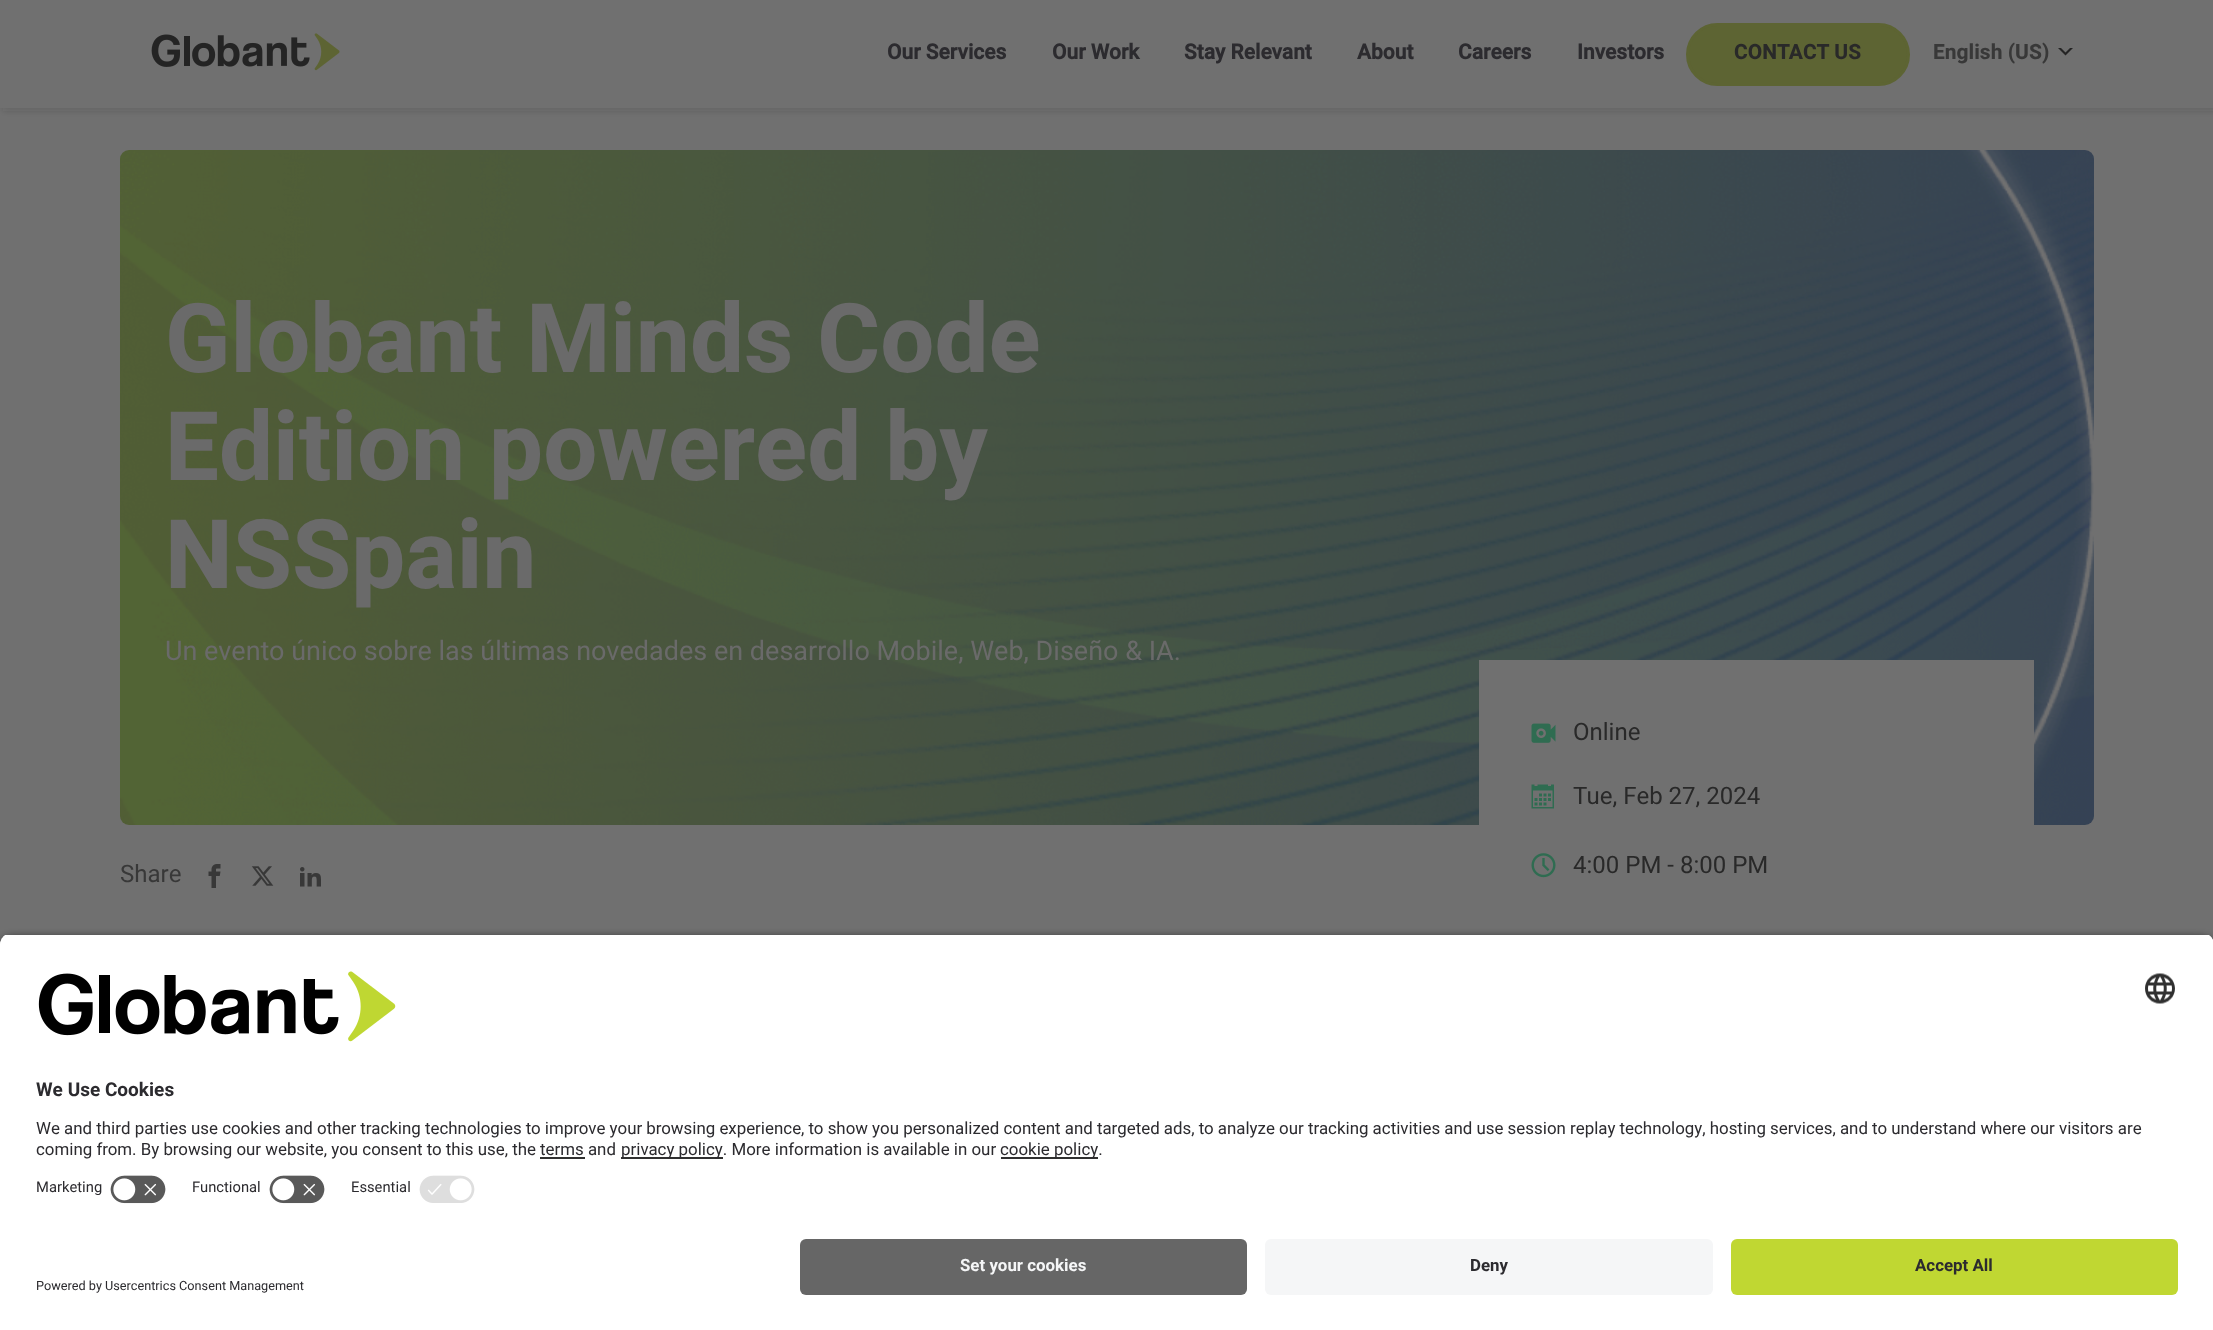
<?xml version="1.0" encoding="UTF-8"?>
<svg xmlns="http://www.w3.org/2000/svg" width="2213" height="1330">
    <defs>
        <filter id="blur1" x="-50%" y="-200%" width="200%" height="500%"><feGaussianBlur stdDeviation="3"/></filter>
        <filter id="blur2" x="-50%" y="-200%" width="200%" height="500%"><feGaussianBlur stdDeviation="5"/></filter>
        <clipPath id="clip1"><path d="M 12 933 H 2202 C 2208.5 933 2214 938.5 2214 945 V 1227 H 0 V 945 C 0 938.5 5.5 933 12 933 Z"/></clipPath>
    </defs>
    <rect width="100%" height="100%" fill="#707070"/>
    <rect x="3" y="3" width="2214" height="108" fill="#242424" fill-opacity="0.17" filter="url(#blur1)"/>
    <rect x="0" y="0" width="2213" height="108" fill="#707070"/>
    <image x="151" y="33" width="189" height="38" href="img_01.png"/>
    <text x="887" y="59" font-family="'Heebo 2'" font-size="21" font-weight="700" fill="#2C2B2F">Our Services</text>
    <text x="1052" y="59" font-family="'Heebo 2'" font-size="21" font-weight="700" fill="#2C2B2F">Our Work</text>
    <text x="1184" y="59" font-family="'Heebo 2'" font-size="21" font-weight="700" fill="#2C2B2F">Stay Relevant</text>
    <text x="1357" y="59" font-family="'Heebo 2'" font-size="21" font-weight="700" fill="#2C2B2F">About</text>
    <text x="1458" y="59" font-family="'Heebo 2'" font-size="21" font-weight="700" fill="#2C2B2F">Careers</text>
    <text x="1577" y="59" font-family="'Heebo 2'" font-size="21" font-weight="700" fill="#2C2B2F">Investors</text>
    <rect x="1687.5" y="24.5" width="221" height="60" rx="30" fill="#5D6433" stroke="#5D6433" stroke-width="3"/>
    <text x="1734" y="59" font-family="Heebo" font-size="21" font-weight="700" fill="#292929">CONTACT US</text>
    <text x="1933" y="59" font-family="Heebo" font-size="21" font-weight="700" fill="#383838">English (US)</text>
    <path d="M 2058 48 H 2073 L 2065.5 55.5 Z" fill="#242424"/>
    <path d="M 2061 48 H 2070 L 2065.5 52.5 Z" fill="#707070"/>
    <image x="120" y="150" width="1974" height="675" href="img_02.png"/>
    <text font-family="Heebo" font-size="96" font-weight="700" fill="#6A6A6A">
        <tspan x="165" y="372">Globant Minds Code</tspan>
        <tspan x="165" y="480">Edition powered by</tspan>
        <tspan x="165" y="588">NSSpain</tspan>
    </text>
    <text x="165" y="660" font-family="Heebo" font-size="27" fill="#6A6A6A">Un evento único sobre las últimas novedades en desarrollo Mobile, Web, Diseño &amp; IA.</text>
    <text x="120" y="882" font-family="Heebo" font-size="24" fill="#383838">Share</text>
    <image x="208" y="864" width="13" height="24" href="img_03.png"/>
    <image x="251" y="866" width="23" height="20" href="img_04.png"/>
    <image x="300" y="867" width="21" height="20" href="img_05.png"/>
    <rect x="1479" y="660" width="555" height="165" fill="#707070"/>
    <image x="1531" y="723" width="25" height="20" href="img_06.png"/>
    <text x="1573" y="740" font-family="Heebo" font-size="24" fill="#292929">Online</text>
    <image x="1531" y="784" width="23" height="25" href="img_07.png"/>
    <text x="1573" y="804" font-family="Heebo" font-size="24" fill="#292929">Tue, Feb 27, 2024</text>
    <image x="1531" y="853" width="25" height="25" href="img_08.png"/>
    <text x="1573" y="873" font-family="Heebo" font-size="24" fill="#292929">4:00 PM - 8:00 PM</text>
    <rect x="0" y="938" width="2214" height="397" rx="12" fill="#000000" fill-opacity="0.8" filter="url(#blur2)"/>
    <g clip-path="url(#clip1)">
        <rect x="0" y="935" width="2213" height="292" fill="#FFFFFF"/>
        <rect x="0" y="935" width="2213" height="232" fill="#FFFFFF"/>
    </g>
    <image x="38" y="971" width="358" height="71" href="img_09.png"/>
    <image x="2145" y="973" width="30" height="31" href="img_10.png"/>
    <text x="36" y="1096" font-family="'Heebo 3'" font-size="19" font-weight="700" fill="#2C2B2F">We Use Cookies</text>
    <text font-family="'Heebo 2'" font-size="16.88" fill="#2C2B2F">
        <tspan x="36" y="1134">We and third parties use cookies and other tracking technologies to improve your browsing experience, to show you personalized content and targeted ads, to analyze our tracking activities and use session replay technology, hosting services, and to understand where our visitors are</tspan>
        <tspan x="36" y="1155">coming from. By browsing our website, you consent to this use, the terms and</tspan>
    </text>
    <rect x="540" y="1157" width="45" height="2" fill="#303030"/>
    <rect x="621" y="1157" width="102" height="2" fill="#303030"/>
    <text x="621" y="1155" font-family="'Heebo 2'" font-size="16.88" fill="#2C2B2F">privacy policy. More information is available in our</text>
    <rect x="1001" y="1157" width="97" height="2" fill="#303030"/>
    <text x="1000" y="1155" font-family="'Heebo 2'" font-size="16.88" fill="#2C2B2F">cookie policy.</text>
    <text x="36" y="1192" font-family="'Heebo 2'" font-size="14.75" fill="#2C2B2F">Marketing</text>
    <image x="110" y="1175" width="56" height="29" href="img_11.png"/>
    <text x="192" y="1192" font-family="'Heebo 2'" font-size="14.75" fill="#2C2B2F">Functional</text>
    <image x="269" y="1175" width="56" height="29" href="img_11.png"/>
    <text x="351" y="1192" font-family="'Heebo 2'" font-size="14.75" fill="#2C2B2F">Essential</text>
    <image x="419" y="1175" width="56" height="28" href="img_12.png"/>
    <rect x="0" y="1227" width="2213" height="103" fill="#FFFFFF"/>
    <rect x="800" y="1239" width="447" height="56" rx="6" fill="#666666"/>
    <text x="960" y="1271" font-family="'Heebo 3'" font-size="16.88" font-weight="700" fill="#F5F6F7">Set your cookies</text>
    <rect x="1265" y="1239" width="448" height="56" rx="6" fill="#F5F6F7"/>
    <text x="1470" y="1271" font-family="'Heebo 3'" font-size="16.88" font-weight="700" fill="#2C2B2F">Deny</text>
    <rect x="1731" y="1239" width="447" height="56" rx="6" fill="#C0D732"/>
    <text x="1915" y="1271" font-family="'Heebo 3'" font-size="16.88" font-weight="700" fill="#2C2B2F">Accept All</text>
    <text x="36" y="1290" font-family="'Heebo 2'" font-size="12.7" fill="#2C2B2F">Powered by Usercentrics Consent Management</text>
</svg>
